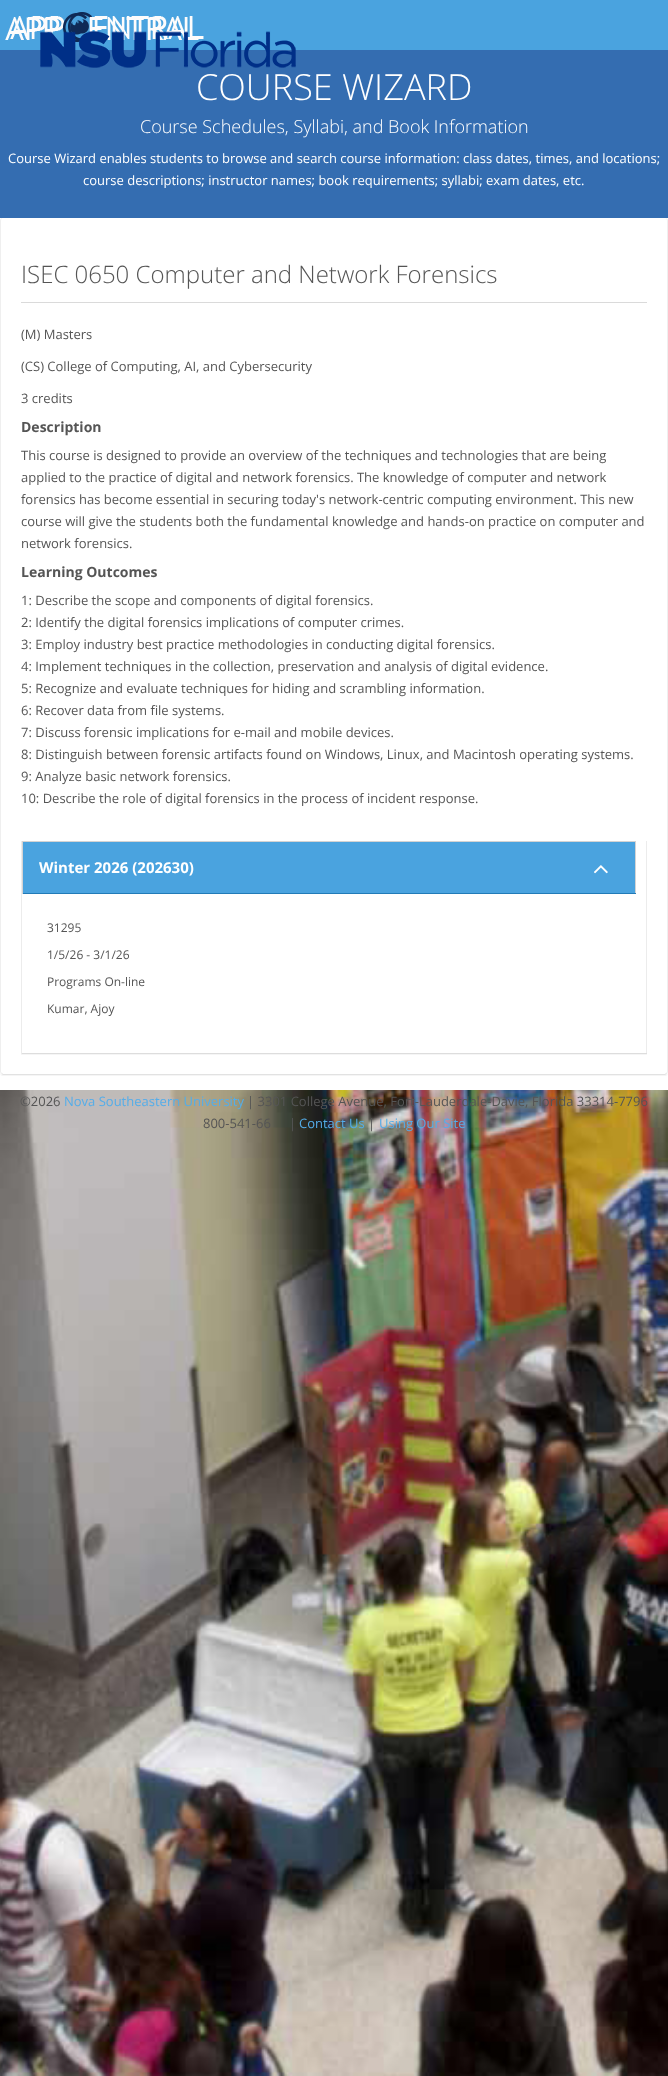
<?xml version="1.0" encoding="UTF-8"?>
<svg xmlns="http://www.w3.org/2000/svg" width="668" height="2076">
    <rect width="100%" height="100%" fill="#FFFFFF"/>
    <image x="0" y="1090" width="668" height="986" href="img_01.png"/>
    <rect x="0" y="0" width="668" height="50" fill="#4AA3DF"/>
    <image x="10" y="12" width="194" height="28" href="img_02.png"/>
    <image x="5" y="13" width="194" height="29" href="img_03.png"/>
    <rect x="0" y="50" width="668" height="168" fill="#346DB1"/>
    <image x="40" y="31" width="256" height="37" href="img_04.png"/>
    <text x="196" y="100" font-family="Open Sans" font-size="36" font-weight="300" fill="#FFFFFF">COURSE WIZARD</text>
    <text x="140" y="133" font-family="Open Sans" font-size="18" font-weight="300" fill="#FFFFFF">Course Schedules, Syllabi, and Book Information</text>
    <text x="8" y="163" font-family="Open Sans" font-size="13" fill="#FFFFFF">Course Wizard enables students to browse and search course information: class dates, times, and locations;</text>
    <text x="83" y="185" font-family="Open Sans" font-size="13" fill="#FFFFFF">course descriptions; instructor names; book requirements; syllabi; exam dates, etc.</text>
    <path d="M 0 1072 V 1073 C 0 1075 1 1076 3 1076 H 665 C 667 1076 668 1075 668 1073 V 1072 C 668 1074 667 1075 665 1075 H 3 C 1 1075 0 1074 0 1072 Z" fill="#F5F5F5"/>
    <path d="M 668 221 C 668 219 667 218 665 218 C 666 218 667 219 667 221 V 1072 L 666 1073 L 667 1074 L 668 1072 Z" fill="#EFEFEF"/>
    <path d="M 2 1073 L 3 1074 H 665 L 666 1073 L 667 1074 L 665 1075 H 3 L 1 1074 Z" fill="#E2E2E2"/>
    <path d="M 3 218 C 1 218 0 219 0 221 V 1072 L 1 1074 L 2 1073 L 1 1072 V 221 C 1 219 2 218 3 218 Z" fill="#EFEFEF"/>
    <rect x="21" y="302" width="626" height="1" fill="#DADADA"/>
    <text x="21" y="283" font-family="Open Sans" font-size="24" font-weight="300" fill="#555555">ISEC 0650 Computer and Network Forensics</text>
    <text x="21" y="339" font-family="Open Sans" font-size="13" fill="#555555">(M) Masters</text>
    <text x="21" y="371" font-family="Open Sans" font-size="13" fill="#555555">(CS) College of Computing, AI, and Cybersecurity</text>
    <text x="21" y="403" font-family="Open Sans" font-size="13" fill="#555555">3 credits</text>
    <text x="21" y="432" font-family="Open Sans" font-size="14" font-weight="700" fill="#555555">Description</text>
    <text font-family="Open Sans" font-size="13" fill="#555555">
        <tspan x="21" y="460">This course is designed to provide an overview of the techniques and technologies that are being</tspan>
        <tspan x="21" y="482">applied to the practice of digital and network forensics. The knowledge of computer and network</tspan>
        <tspan x="21" y="504">forensics has become essential in securing today's network-centric computing environment. This new</tspan>
        <tspan x="21" y="526">course will give the students both the fundamental knowledge and hands-on practice on computer and</tspan>
        <tspan x="21" y="548">network forensics.</tspan>
    </text>
    <text x="21" y="577" font-family="Open Sans" font-size="14" font-weight="700" fill="#555555">Learning Outcomes</text>
    <text font-family="Open Sans" font-size="13" fill="#555555">
        <tspan x="21" y="605">1: Describe the scope and components of digital forensics.</tspan>
        <tspan x="21" y="627">2: Identify the digital forensics implications of computer crimes.</tspan>
        <tspan x="21" y="649">3: Employ industry best practice methodologies in conducting digital forensics.</tspan>
        <tspan x="21" y="671">4: Implement techniques in the collection, preservation and analysis of digital evidence.</tspan>
        <tspan x="21" y="693">5: Recognize and evaluate techniques for hiding and scrambling information.</tspan>
        <tspan x="21" y="715">6: Recover data from file systems.</tspan>
        <tspan x="21" y="737">7: Discuss forensic implications for e-mail and mobile devices.</tspan>
        <tspan x="21" y="759">8: Distinguish between forensic artifacts found on Windows, Linux, and Macintosh operating systems.</tspan>
        <tspan x="21" y="781">9: Analyze basic network forensics.</tspan>
        <tspan x="21" y="803">10: Describe the role of digital forensics in the process of incident response.</tspan>
    </text>
    <rect x="21" y="1054" width="626" height="1" fill="#F5F5F5"/>
    <rect x="646" y="841" width="1" height="213" fill="#ECECEC"/>
    <rect x="21" y="1053" width="626" height="1" fill="#DDDDDD"/>
    <rect x="21" y="841" width="1" height="213" fill="#ECECEC"/>
    <rect x="23" y="842" width="612" height="51" fill="#4AA3DF"/>
    <rect x="22" y="841" width="614" height="1" fill="#D4D3D3"/>
    <rect x="635" y="841" width="1" height="53" fill="#D4D3D3"/>
    <rect x="22" y="893" width="614" height="1" fill="#227BB7"/>
    <rect x="22" y="841" width="1" height="53" fill="#D4D3D3"/>
    <text x="39" y="873" font-family="Open Sans" font-size="15" font-weight="700" fill="#FFFFFF">Winter 2026 (202630)</text>
    <image x="594" y="865" width="14" height="9" href="img_05.png"/>
    <text x="47" y="932" font-family="Open Sans" font-size="12" fill="#555555">31295</text>
    <text x="47" y="959" font-family="Open Sans" font-size="12" fill="#555555">1/5/26 - 3/1/26</text>
    <text x="47" y="986" font-family="Open Sans" font-size="12" fill="#555555">Programs On-line</text>
    <text x="47" y="1013" font-family="Open Sans" font-size="12" fill="#555555">Kumar, Ajoy</text>
    <text x="20" y="1106" font-family="Open Sans" font-size="13" fill="#555555">©2026</text>
    <text x="64" y="1106" font-family="Open Sans" font-size="13" fill="#54ADE9">Nova Southeastern University</text>
    <text x="247" y="1106" font-family="Open Sans" font-size="13" fill="#555555">| 3301 College Avenue, Fort-Lauderdale-Davie, Florida 33314-7796</text>
    <text x="203" y="1128" font-family="Open Sans" font-size="13" fill="#555555">800-541-66</text>
    <text x="289" y="1128" font-family="Open Sans" font-size="13" fill="#555555">|</text>
    <text x="299" y="1128" font-family="Open Sans" font-size="13" fill="#54ADE9">Contact Us</text>
    <text x="368" y="1128" font-family="Open Sans" font-size="13" fill="#555555">|</text>
    <text x="379" y="1128" font-family="Open Sans" font-size="13" fill="#54ADE9">Using Our Site</text>
</svg>
